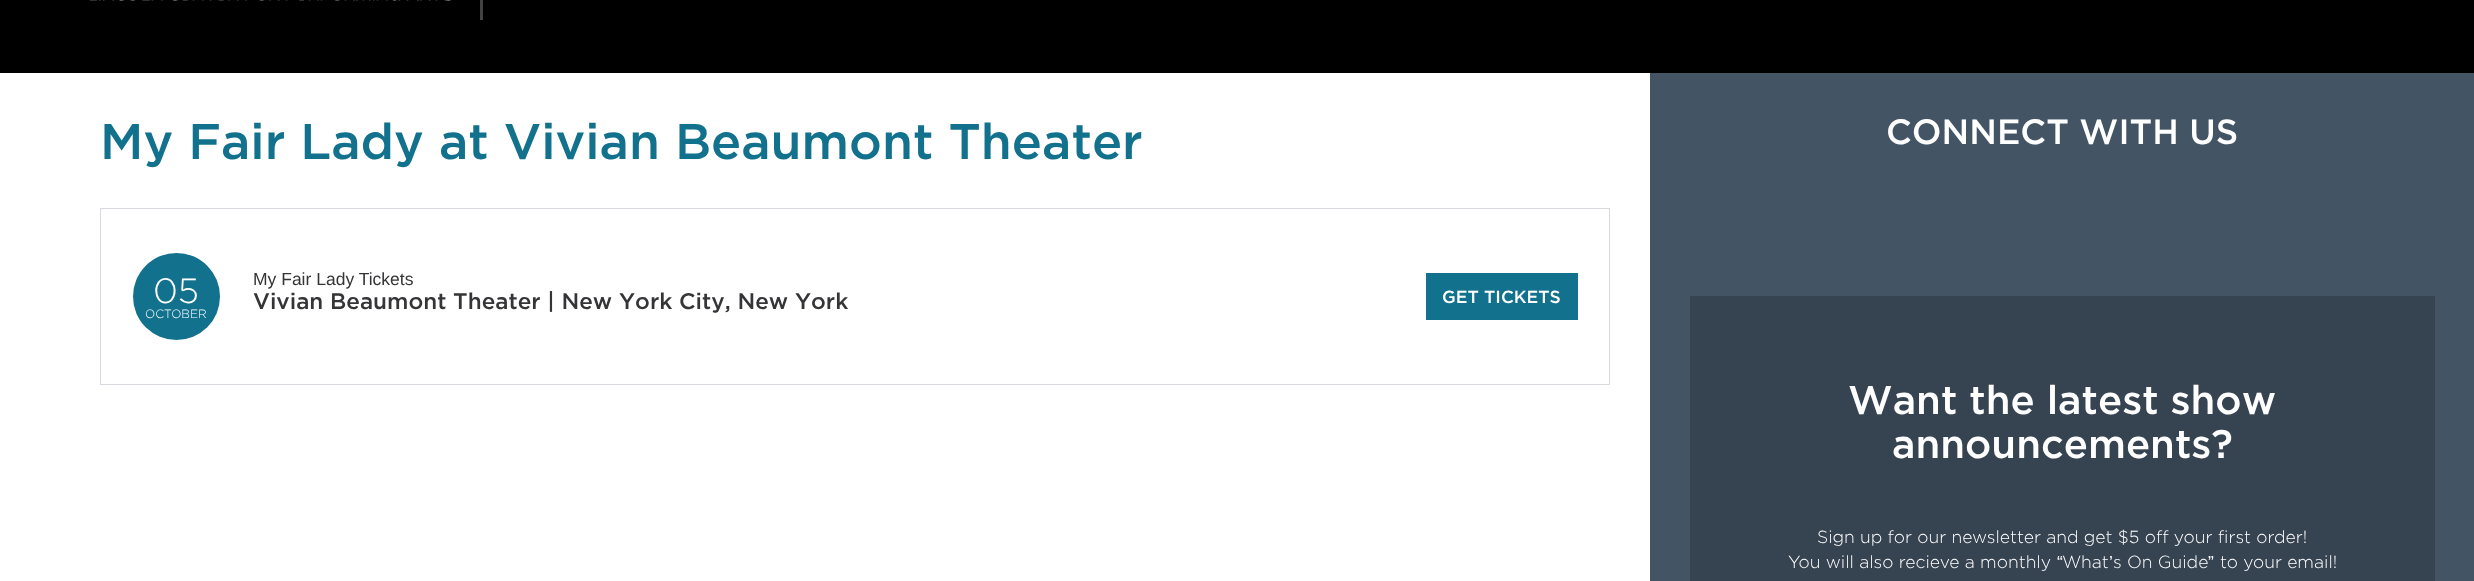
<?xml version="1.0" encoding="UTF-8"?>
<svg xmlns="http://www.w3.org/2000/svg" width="2474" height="581">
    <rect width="100%" height="100%" fill="#FFFFFF"/>
    <rect x="0" y="0" width="2474" height="73" fill="#000000"/>
    <image x="89" y="0" width="362" height="1" href="img_01.png"/>
    <rect x="480" y="0" width="3" height="20" fill="#434343"/>
    <text x="100" y="159" font-family="Gotham" font-size="50" font-weight="500" fill="#12718D">My Fair Lady at Vivian Beaumont Theater</text>
    <rect x="100.5" y="208.5" width="1509" height="176" fill="none" stroke="#D6DADE"/>
    <circle cx="176.5" cy="296.5" r="43.5" fill="#12718D"/>
    <text x="153" y="303" font-family="Gotham" font-size="35" font-weight="300" fill="#FFFFFF">05</text>
    <text x="145" y="318" font-family="Gotham" font-size="12" font-weight="300" fill="#FFFFFF">OCTOBER</text>
    <text x="253" y="285" font-family="Liberation Sans" font-size="17.5" fill="#353537">My Fair Lady Tickets</text>
    <text x="253" y="309" font-family="Gotham" font-size="22.5" font-weight="500" fill="#353537">Vivian Beaumont Theater | New York City, New York</text>
    <rect x="1426" y="273" width="152" height="47" fill="#12718D"/>
    <text x="1442" y="303" font-family="Gotham" font-size="17.5" font-weight="500" fill="#FFFFFF">GET TICKETS</text>
    <rect x="1650" y="73" width="824" height="508" fill="#435465"/>
    <text x="1886" y="144" font-family="Gotham" font-size="35" font-weight="500" fill="#FFFFFF">CONNECT WITH US</text>
    <rect x="1690" y="296" width="745" height="285" fill="#364351"/>
    <text x="1848" y="414" font-family="Gotham" font-size="40" font-weight="500" fill="#FFFFFF">Want the latest show</text>
    <text x="1892" y="458" font-family="Gotham" font-size="40" font-weight="500" fill="#FFFFFF">announcements?</text>
    <text x="1817" y="543" font-family="Gotham" font-size="17.5" font-weight="300" fill="#FFFFFF">Sign up for our newsletter and get $5 off your first order!</text>
    <text x="1788" y="568" font-family="Gotham" font-size="17.5" font-weight="300" fill="#FFFFFF">You will also recieve a monthly</text>
    <text x="2057" y="568" font-family="Liberation Sans" font-size="17.5" fill="#FFFFFF">“</text>
    <text x="2062" y="568" font-family="Gotham" font-size="17.5" font-weight="300" fill="#FFFFFF">What</text>
    <text x="2109" y="568" font-family="Liberation Sans" font-size="17.5" fill="#FFFFFF">’</text>
    <text x="2113" y="568" font-family="Gotham" font-size="17.5" font-weight="300" fill="#FFFFFF">s On Guide</text>
    <text x="2208" y="568" font-family="Liberation Sans" font-size="17.5" fill="#FFFFFF">”</text>
    <text x="2220" y="568" font-family="Gotham" font-size="17.5" font-weight="300" fill="#FFFFFF">to your email!</text>
</svg>
